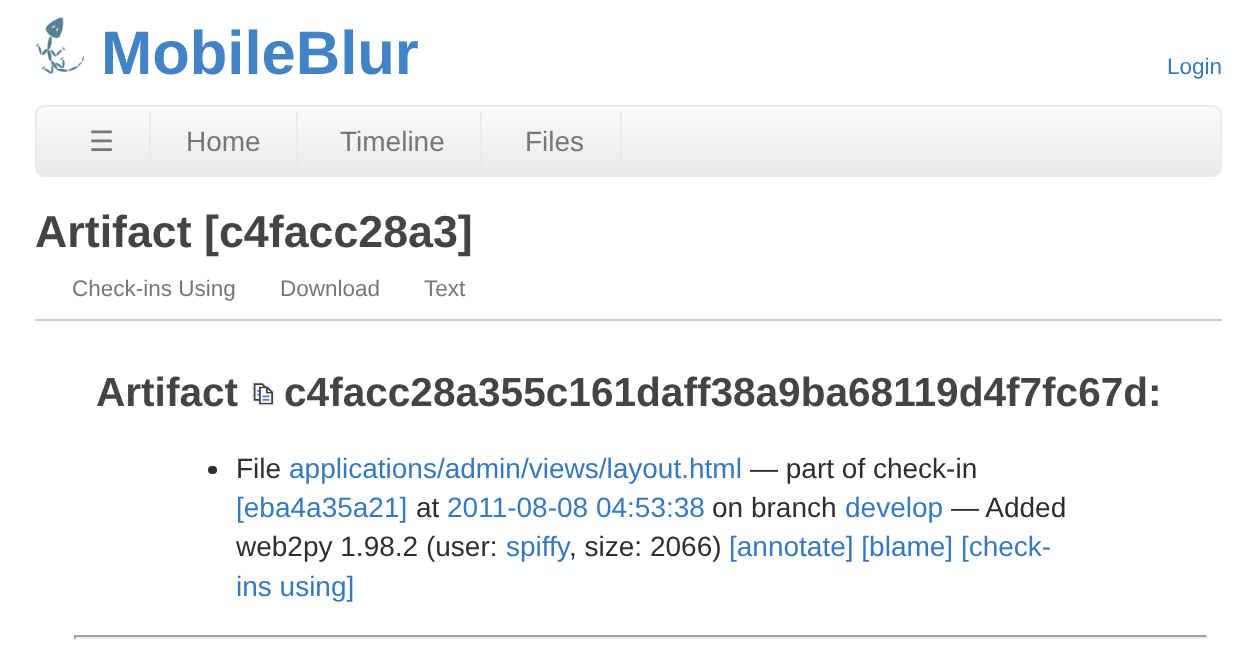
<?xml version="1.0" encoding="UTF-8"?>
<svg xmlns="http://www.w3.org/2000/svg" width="1256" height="653">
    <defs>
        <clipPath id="clip1"><rect x="35" y="105" width="1187" height="72" rx="9"/></clipPath>
        <linearGradient id="g1" gradientUnits="userSpaceOnUse" x1="628" y1="107" x2="628" y2="175"><stop offset="0" stop-color="#FAFAFA"/><stop offset="1" stop-color="#EAEAEA"/></linearGradient>
    </defs>
    <rect width="100%" height="100%" fill="#FFFFFF"/>
    <image x="35" y="17" width="49" height="57" href="img_01.png"/>
    <text x="101" y="74" font-family="Liberation Sans" font-size="61.5" font-weight="700" fill="#4183C4">MobileBlur</text>
    <text x="1167" y="74" font-family="Liberation Sans" font-size="22.5" fill="#3779BF">Login</text>
    <g clip-path="url(#clip1)">
        <rect x="35" y="107" width="1187" height="68" fill="url(#g1)"/>
    </g>
    <rect x="36" y="106" width="1185" height="70" rx="8" fill="none" stroke="#EAEAEA" stroke-width="2"/>
    <text x="89" y="151" font-family="DejaVu Sans" font-size="28" fill="#777777">☰</text>
    <rect x="149" y="112" width="2" height="58" fill="#EAEAEA"/>
    <text x="186" y="151" font-family="Liberation Sans" font-size="28" fill="#777777">Home</text>
    <rect x="296" y="112" width="2" height="58" fill="#EAEAEA"/>
    <text x="340" y="151" font-family="Liberation Sans" font-size="28" fill="#777777">Timeline</text>
    <rect x="480" y="112" width="2" height="58" fill="#EAEAEA"/>
    <text x="525" y="151" font-family="Liberation Sans" font-size="28" fill="#777777">Files</text>
    <rect x="620" y="112" width="2" height="58" fill="#EAEAEA"/>
    <text x="35" y="247" font-family="Liberation Sans" font-size="44.75" font-weight="700" fill="#444444">Artifact [c4facc28a3]</text>
    <rect x="35" y="319" width="1187" height="2" fill="#CCCCCC"/>
    <text x="72" y="296" font-family="Liberation Sans" font-size="22.5" fill="#777777">Check-ins Using</text>
    <text x="280" y="296" font-family="Liberation Sans" font-size="22.5" fill="#777777">Download</text>
    <text x="424" y="296" font-family="Liberation Sans" font-size="22.5" fill="#777777">Text</text>
    <text x="96" y="406" font-family="Liberation Sans" font-size="40.6" font-weight="700" fill="#444444">Artifact</text>
    <image x="252" y="382" width="23" height="24" href="img_02.png"/>
    <text x="284" y="406" font-family="Liberation Sans" font-size="40.6" font-weight="700" fill="#444444">c4facc28a355c161daff38a9ba68119d4f7fc67d</text>
    <text x="1148" y="406" font-family="Liberation Sans" font-size="40.6" font-weight="700" fill="#444444">:</text>
    <rect x="208" y="466" width="9" height="8" rx="4" fill="#2E2E2E"/>
    <text x="236" y="478" font-family="Liberation Sans" font-size="28" fill="#2E2E2E">File</text>
    <text x="289" y="478" font-family="Liberation Sans" font-size="28" fill="#3779BF">applications/admin/views/layout.html</text>
    <text x="750" y="478" font-family="Liberation Sans" font-size="28" fill="#2E2E2E">— part of check-in</text>
    <text x="236" y="517" font-family="Liberation Sans" font-size="28" fill="#3779BF">[eba4a35a21]</text>
    <text x="416" y="517" font-family="Liberation Sans" font-size="28" fill="#2E2E2E">at</text>
    <text x="447" y="517" font-family="Liberation Sans" font-size="28" fill="#3779BF">2011-08-08 04:53:38</text>
    <text x="712" y="517" font-family="Liberation Sans" font-size="28" fill="#2E2E2E">on branch</text>
    <text x="845" y="517" font-family="Liberation Sans" font-size="28" fill="#3779BF">develop</text>
    <text x="951" y="517" font-family="Liberation Sans" font-size="28" fill="#2E2E2E">— Added</text>
    <text x="236" y="556" font-family="Liberation Sans" font-size="28" fill="#2E2E2E">web2py 1.98.2 (user:</text>
    <text x="506" y="556" font-family="Liberation Sans" font-size="28" fill="#3779BF">spiffy</text>
    <text x="569" y="556" font-family="Liberation Sans" font-size="28" fill="#2E2E2E">, size: 2066)</text>
    <text x="729" y="556" font-family="Liberation Sans" font-size="28" fill="#3779BF">[annotate] [blame] [check-</text>
    <text x="236" y="596" font-family="Liberation Sans" font-size="28" fill="#3779BF">ins using]</text>
    <rect x="74" y="635" width="1134" height="2" fill="#9F9F9F"/>
    <rect x="1206" y="635" width="2" height="4" fill="#EEEEEE"/>
    <rect x="74" y="637" width="1134" height="2" fill="#EEEEEE"/>
    <rect x="74" y="635" width="2" height="4" fill="#9F9F9F"/>
</svg>
